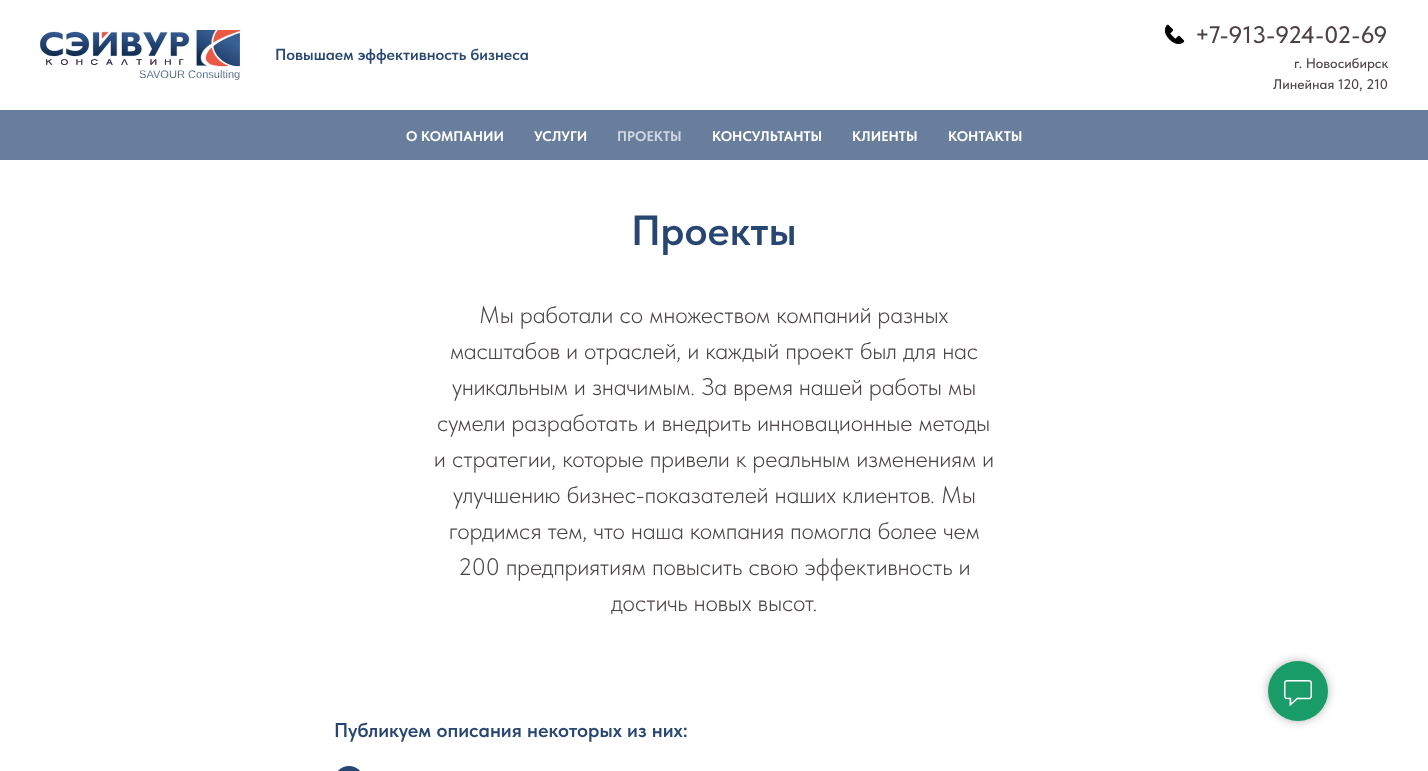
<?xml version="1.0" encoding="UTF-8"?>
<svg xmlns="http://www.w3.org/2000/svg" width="1428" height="771">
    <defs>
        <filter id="blur1" x="-50%" y="-200%" width="200%" height="500%"><feGaussianBlur stdDeviation="5"/></filter>
    </defs>
    <rect width="100%" height="100%" fill="#FFFFFF"/>
    <image x="40" y="30" width="200" height="50" href="img_01.png"/>
    <text x="275" y="60" font-family="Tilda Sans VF" font-size="16" font-weight="600" fill="#274671">Повышаем эффективность бизнеса</text>
    <image x="1164" y="24" width="21" height="20" href="img_02.png"/>
    <text x="1195" y="43" font-family="Tilda Sans VF" font-size="24" font-weight="500" fill="#4C4444">+7-913-924-02-69</text>
    <text x="1294" y="68" font-family="Tilda Sans VF" font-size="14" font-weight="500" fill="#4C4444">г. Новосибирск</text>
    <text x="1273" y="89" font-family="Tilda Sans VF" font-size="14" font-weight="500" fill="#4C4444">Линейная 120, 210</text>
    <rect x="0" y="110" width="1428" height="50" fill="#687E9C"/>
    <text x="406" y="141" font-family="Tilda Sans VF" font-size="14" font-weight="700" fill="#FFFFFF">О КОМПАНИИ</text>
    <text x="534" y="141" font-family="Tilda Sans VF" font-size="14" font-weight="700" fill="#FFFFFF">УСЛУГИ</text>
    <text x="617" y="141" font-family="Tilda Sans VF" font-size="14" font-weight="700" fill="#D2D8E1">ПРОЕКТЫ</text>
    <text x="712" y="141" font-family="Tilda Sans VF" font-size="14" font-weight="700" fill="#FFFFFF">КОНСУЛЬТАНТЫ</text>
    <text x="852" y="141" font-family="Tilda Sans VF" font-size="14" font-weight="700" fill="#FFFFFF">КЛИЕНТЫ</text>
    <text x="948" y="141" font-family="Tilda Sans VF" font-size="14" font-weight="700" fill="#FFFFFF">КОНТАКТЫ</text>
    <rect x="1268" y="661" width="60" height="60" rx="30" fill="#000000" fill-opacity="0.3" filter="url(#blur1)"/>
    <circle cx="1298" cy="691" r="30" fill="#199C68"/>
    <image x="1284" y="680" width="28" height="27" href="img_03.png"/>
    <text x="631" y="245" font-family="Tilda Sans VF" font-size="42" font-weight="600" fill="#274671">Проекты</text>
    <text x="479" y="323" font-family="Tilda Sans VF" font-size="24" font-weight="300" fill="#4C4444">Мы работали со множеством компаний разных</text>
    <text x="450" y="359" font-family="Tilda Sans VF" font-size="24" font-weight="300" fill="#4C4444">масштабов и отраслей, и каждый проект был для нас</text>
    <text x="452" y="395" font-family="Tilda Sans VF" font-size="24" font-weight="300" fill="#4C4444">уникальным и значимым. За время нашей работы мы</text>
    <text x="437" y="431" font-family="Tilda Sans VF" font-size="24" font-weight="300" fill="#4C4444">сумели разработать и внедрить инновационные методы</text>
    <text x="434" y="467" font-family="Tilda Sans VF" font-size="24" font-weight="300" fill="#4C4444">и стратегии, которые привели к реальным изменениям и</text>
    <text x="453" y="503" font-family="Tilda Sans VF" font-size="24" font-weight="300" fill="#4C4444">улучшению бизнес-показателей наших клиентов. Мы</text>
    <text x="449" y="539" font-family="Tilda Sans VF" font-size="24" font-weight="300" fill="#4C4444">гордимся тем, что наша компания помогла более чем</text>
    <text x="458" y="575" font-family="Tilda Sans VF" font-size="24" font-weight="300" fill="#4C4444">200 предприятиям повысить свою эффективность и</text>
    <text x="611" y="611" font-family="Tilda Sans VF" font-size="24" font-weight="300" fill="#4C4444">достичь новых высот.</text>
    <text x="334" y="737" font-family="Tilda Sans VF" font-size="20" font-weight="600" fill="#274671">Публикуем описания некоторых из них:</text>
    <image x="338" y="766" width="22" height="5" href="img_04.png"/>
</svg>
